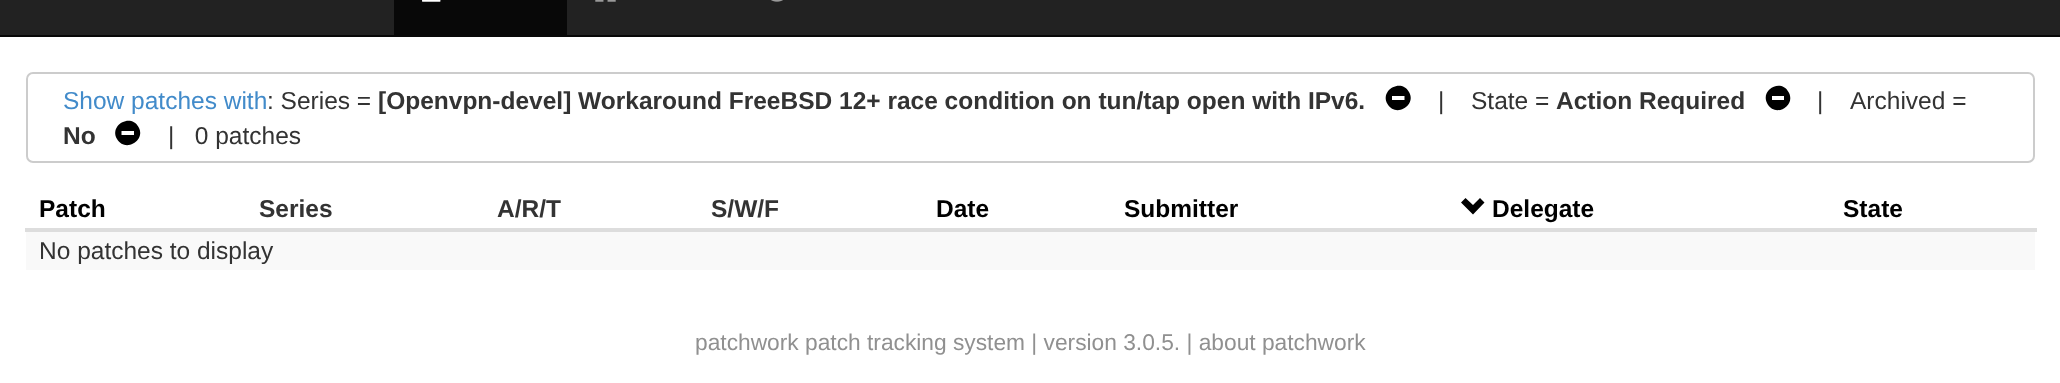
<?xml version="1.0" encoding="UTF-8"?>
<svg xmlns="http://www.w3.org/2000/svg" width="2060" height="383">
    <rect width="100%" height="100%" fill="#FFFFFF"/>
    <rect x="0" y="0" width="2060" height="35" fill="#222222"/>
    <rect x="0" y="35" width="2060" height="2" fill="#080808"/>
    <rect x="394" y="0" width="173" height="35" fill="#080808"/>
    <image x="422" y="0" width="19" height="2" href="img_01.png"/>
    <image x="595" y="0" width="21" height="2" href="img_02.png"/>
    <image x="771" y="0" width="12" height="2" href="img_03.png"/>
    <rect x="27" y="73" width="2007" height="89" rx="6" fill="none" stroke="#CCCCCC" stroke-width="2"/>
    <text x="63" y="109" font-family="Liberation Sans" font-size="24.5" fill="#428BCA">Show patches with</text>
    <text x="267" y="109" font-family="Liberation Sans" font-size="24.5" fill="#333333">: Series =</text>
    <text x="378" y="109" font-family="Liberation Sans" font-size="24.5" font-weight="700" fill="#333333">[Openvpn-devel] Workaround FreeBSD 12+ race condition on tun/tap open with IPv6.</text>
    <path d="M 1387.5 104 C 1379.5 90.5 1401 78 1409 92 C 1417 105.5 1395.5 118 1387.5 104 Z M 1392 100 H 1404.5 V 96 H 1392 Z" fill="#000000"/>
    <text x="1438" y="109" font-family="Liberation Sans" font-size="24.5" fill="#333333">|</text>
    <text x="1471" y="109" font-family="Liberation Sans" font-size="24.5" fill="#333333">State =</text>
    <text x="1556" y="109" font-family="Liberation Sans" font-size="24.5" font-weight="700" fill="#333333">Action Required</text>
    <path d="M 1767.5 104 C 1759.5 90.5 1780.5 78 1788.5 92 C 1796.5 105.5 1775.5 118 1767.5 104 Z M 1772 100 H 1784 V 96 H 1772 Z" fill="#000000"/>
    <text x="1817" y="109" font-family="Liberation Sans" font-size="24.5" fill="#333333">|</text>
    <text x="1850" y="109" font-family="Liberation Sans" font-size="24.5" fill="#333333">Archived =</text>
    <text x="63" y="144" font-family="Liberation Sans" font-size="24.5" font-weight="700" fill="#333333">No</text>
    <path d="M 117 139 C 109 125.5 130.5 113 138.5 127 C 146.5 140.5 125 153 117 139 Z M 121.5 135 H 134 V 131 H 121.5 Z" fill="#000000"/>
    <text x="168" y="144" font-family="Liberation Sans" font-size="24.5" fill="#333333" xml:space="preserve">|   0 patches</text>
    <text x="39" y="217" font-family="Liberation Sans" font-size="24.5" font-weight="700" fill="#000000">Patch</text>
    <text x="259" y="217" font-family="Liberation Sans" font-size="24.5" font-weight="700" fill="#333333">Series</text>
    <text x="497" y="217" font-family="Liberation Sans" font-size="24.5" font-weight="700" fill="#333333">A/R/T</text>
    <text x="711" y="217" font-family="Liberation Sans" font-size="24.5" font-weight="700" fill="#333333">S/W/F</text>
    <text x="936" y="217" font-family="Liberation Sans" font-size="24.5" font-weight="700" fill="#000000">Date</text>
    <text x="1124" y="217" font-family="Liberation Sans" font-size="24.5" font-weight="700" fill="#000000">Submitter</text>
    <path d="M 1461 202.5 L 1473 214.5 L 1484.5 202.5 L 1480 198 L 1473 205 L 1465.5 198 Z" fill="#000000"/>
    <text x="1492" y="217" font-family="Liberation Sans" font-size="24.5" font-weight="700" fill="#000000">Delegate</text>
    <rect x="25" y="228" width="2012" height="4" fill="#DDDDDD"/>
    <text x="1843" y="217" font-family="Liberation Sans" font-size="24.5" font-weight="700" fill="#000000">State</text>
    <rect x="26" y="232" width="2009" height="38" fill="#F9F9F9"/>
    <text x="39" y="259" font-family="Liberation Sans" font-size="24.5" fill="#333333">No patches to display</text>
    <text x="695" y="350" font-family="Liberation Sans" font-size="22.75" fill="#909090">patchwork patch tracking system | version 3.0.5. | about patchwork</text>
</svg>
